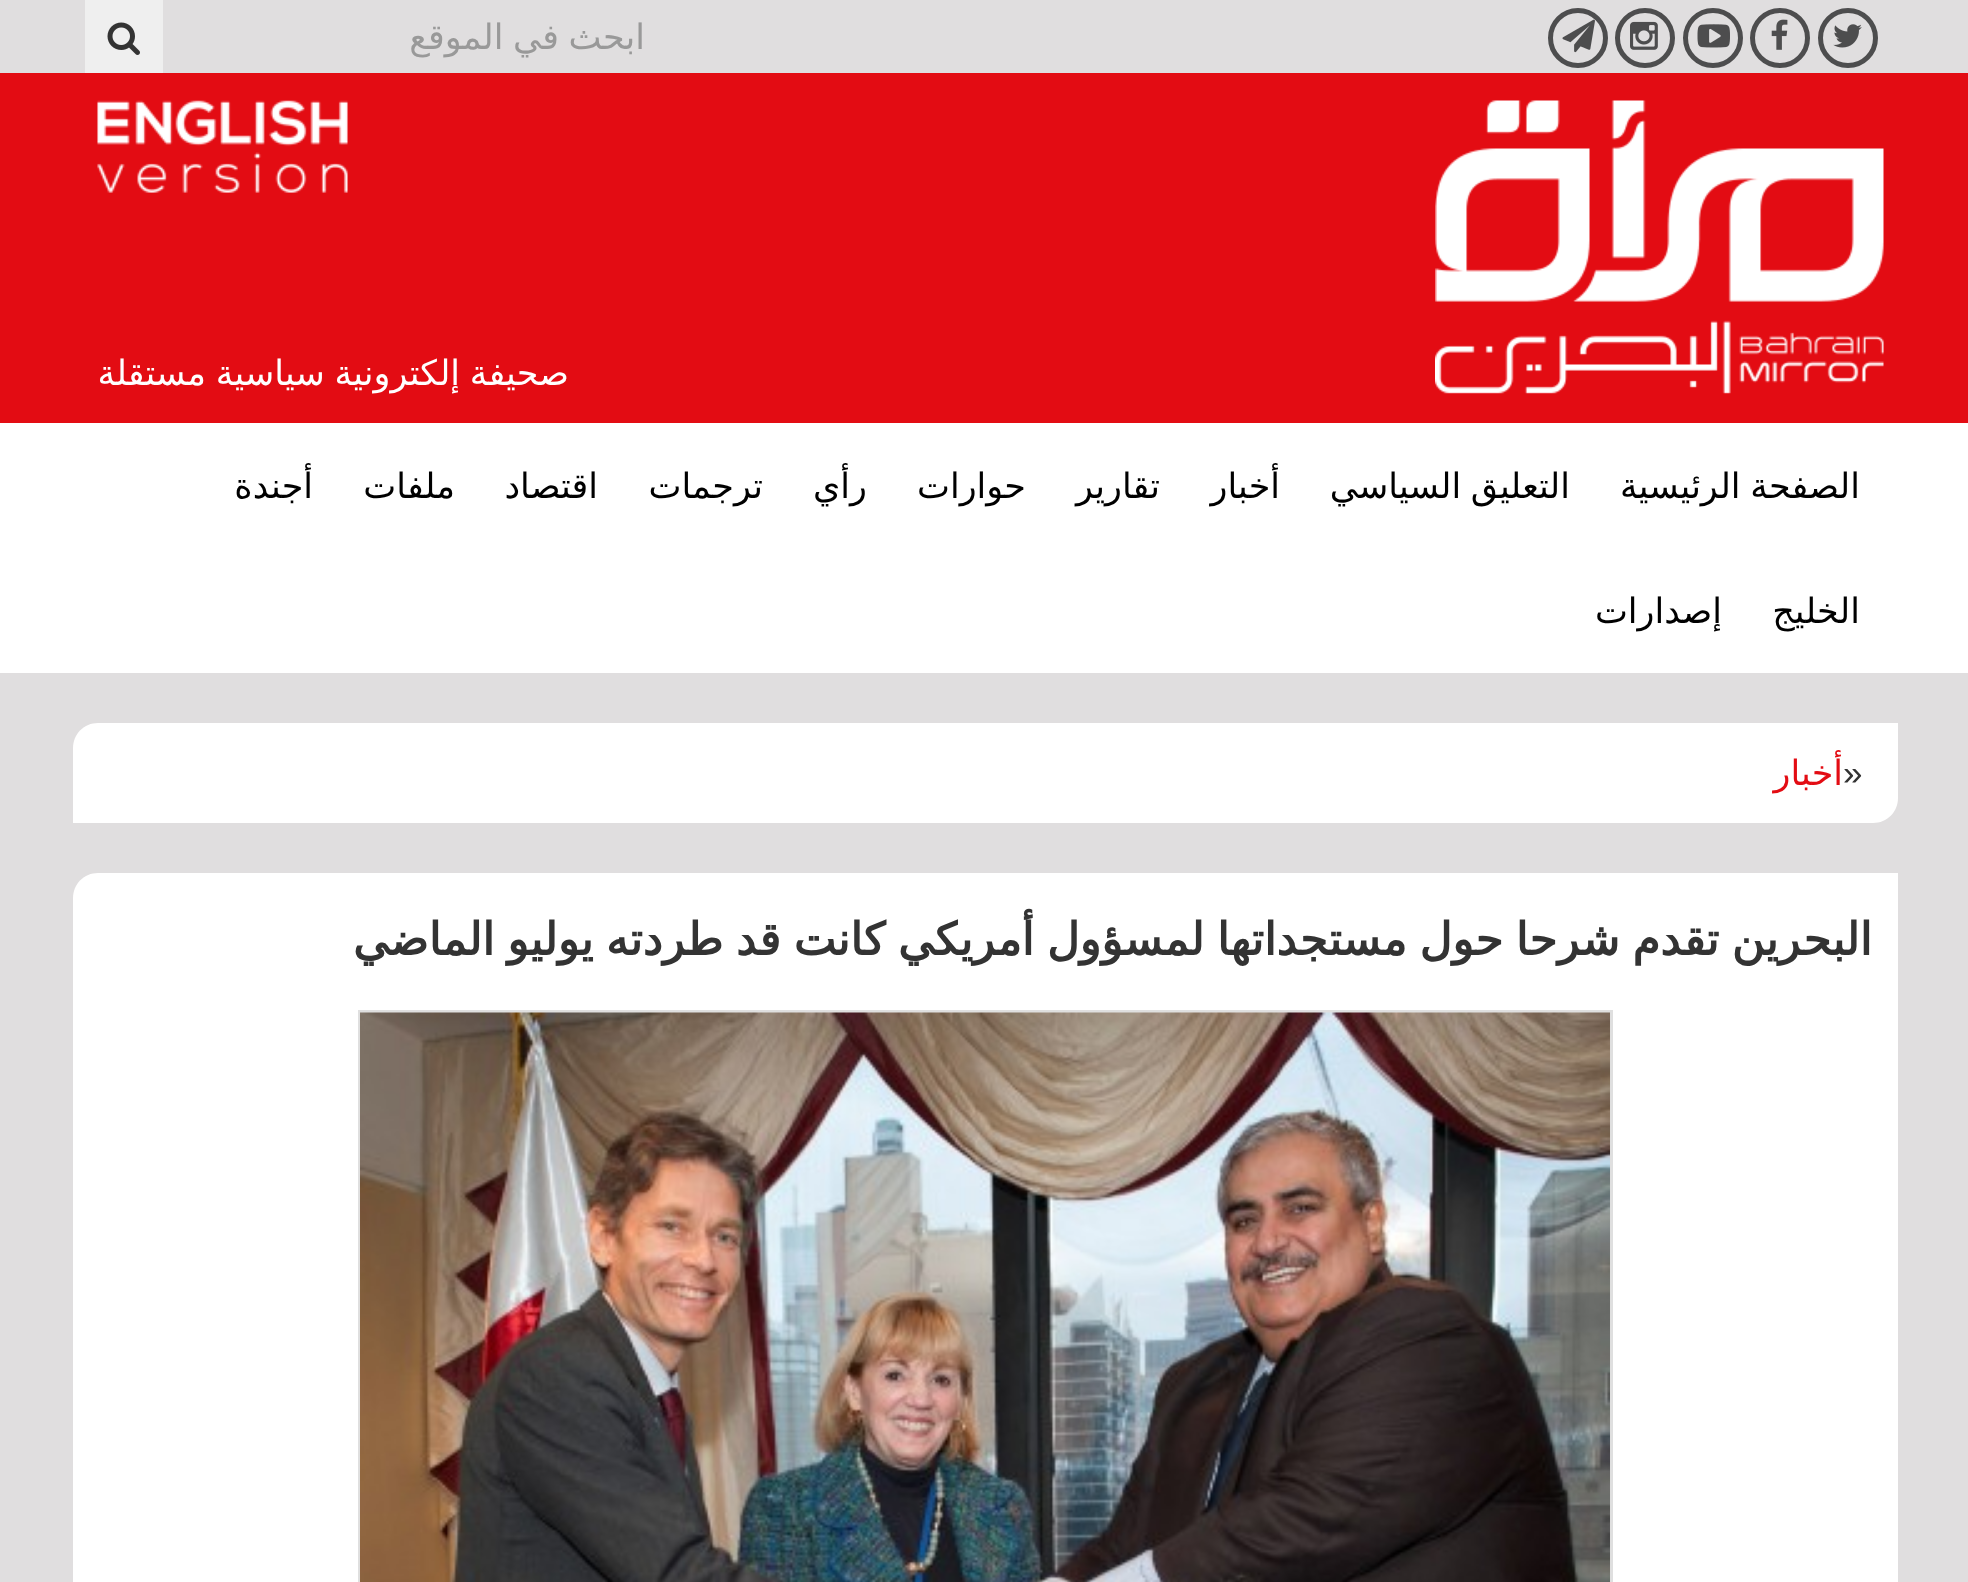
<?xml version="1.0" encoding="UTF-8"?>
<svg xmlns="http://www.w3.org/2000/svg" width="1968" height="1582">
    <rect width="100%" height="100%" fill="#E0DEDF"/>
    <circle cx="1848" cy="38" r="27.5" fill="none" stroke="#4D4D4E" stroke-width="5"/>
    <image x="1833" y="24" width="29" height="24" href="img_01.png"/>
    <circle cx="1780" cy="38" r="27.5" fill="none" stroke="#4D4D4E" stroke-width="5"/>
    <image x="1771" y="19" width="17" height="31" href="img_02.png"/>
    <circle cx="1713" cy="38" r="27.5" fill="none" stroke="#4D4D4E" stroke-width="5"/>
    <image x="1697" y="24" width="33" height="24" href="img_03.png"/>
    <circle cx="1645" cy="38" r="27.5" fill="none" stroke="#4D4D4E" stroke-width="5"/>
    <image x="1630" y="21" width="28" height="29" href="img_04.png"/>
    <circle cx="1578" cy="38" r="27.5" fill="none" stroke="#4D4D4E" stroke-width="5"/>
    <image x="1562" y="19" width="33" height="34" href="img_05.png"/>
    <text x="645" y="49" word-spacing="-1.5" font-family="DejaVu Sans" font-size="35" direction="rtl" fill="#999999">ابحث في الموقع</text>
    <rect x="85" y="0" width="78" height="73" fill="#EFEFEF"/>
    <image x="107" y="22" width="33" height="33" href="img_06.png"/>
    <rect x="0" y="73" width="1968" height="350" fill="#E30C13"/>
    <image x="1435" y="100" width="449" height="294" href="img_07.png"/>
    <image x="97" y="100" width="251" height="93" href="img_08.png"/>
    <text x="569" y="385" word-spacing="-1.5" font-family="DejaVu Sans" font-size="35" direction="rtl" fill="#FFFFFF">صحيفة إلكترونية سياسية مستقلة</text>
    <rect x="0" y="423" width="1968" height="250" fill="#FFFFFF"/>
    <text x="1860" y="498" word-spacing="-1.5" font-family="DejaVu Sans" font-size="35" direction="rtl" fill="#000000">الصفحة الرئيسية</text>
    <text x="1570" y="498" word-spacing="-1.5" font-family="DejaVu Sans" font-size="35" direction="rtl" fill="#000000">التعليق السياسي</text>
    <text x="1280" y="498" font-family="DejaVu Sans" font-size="35" direction="rtl" fill="#000000">أخبار</text>
    <text x="1160" y="498" font-family="DejaVu Sans" font-size="35" direction="rtl" fill="#000000">تقارير</text>
    <text x="1026" y="498" font-family="DejaVu Sans" font-size="35" direction="rtl" fill="#000000">حوارات</text>
    <text x="867" y="498" font-family="DejaVu Sans" font-size="35" direction="rtl" fill="#000000">رأي</text>
    <text x="763" y="498" font-family="DejaVu Sans" font-size="35" direction="rtl" fill="#000000">ترجمات</text>
    <text x="598" y="498" font-family="DejaVu Sans" font-size="35" direction="rtl" fill="#000000">اقتصاد</text>
    <text x="455" y="498" font-family="DejaVu Sans" font-size="35" direction="rtl" fill="#000000">ملفات</text>
    <text x="313" y="498" font-family="DejaVu Sans" font-size="35" direction="rtl" fill="#000000">أجندة</text>
    <text x="1860" y="623" font-family="DejaVu Sans" font-size="35" direction="rtl" fill="#000000">الخليج</text>
    <text x="1722" y="623" font-family="DejaVu Sans" font-size="35" direction="rtl" fill="#000000">إصدارات</text>
    <path d="M 98 723 H 1898 V 798 C 1898 812 1887 823 1873 823 H 73 V 748 C 73 734 84 723 98 723 Z" fill="#FFFFFF"/>
    <text x="1843" y="785" font-family="Liberation Sans" font-size="35" fill="#333333">»</text>
    <text x="1843" y="785" font-family="DejaVu Sans" font-size="35" direction="rtl" fill="#E30C13">أخبار</text>
    <path d="M 98 873 H 1898 V 1582 C 1898 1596 1887 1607 1873 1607 H 73 V 898 C 73 884 84 873 98 873 Z" fill="#FFFFFF"/>
    <text x="1872" y="955" word-spacing="-1.75" font-family="DejaVu Sans" font-size="45" font-weight="700" direction="rtl" fill="#333333">البحرين تقدم شرحا حول مستجداتها لمسؤول أمريكي كانت قد طردته يوليو الماضي</text>
    <rect x="359.5" y="1011.5" width="1252" height="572" fill="none" stroke="#DFDFDF" stroke-width="3"/>
    <image x="360" y="1012" width="1250" height="570" href="img_09.png"/>
</svg>
